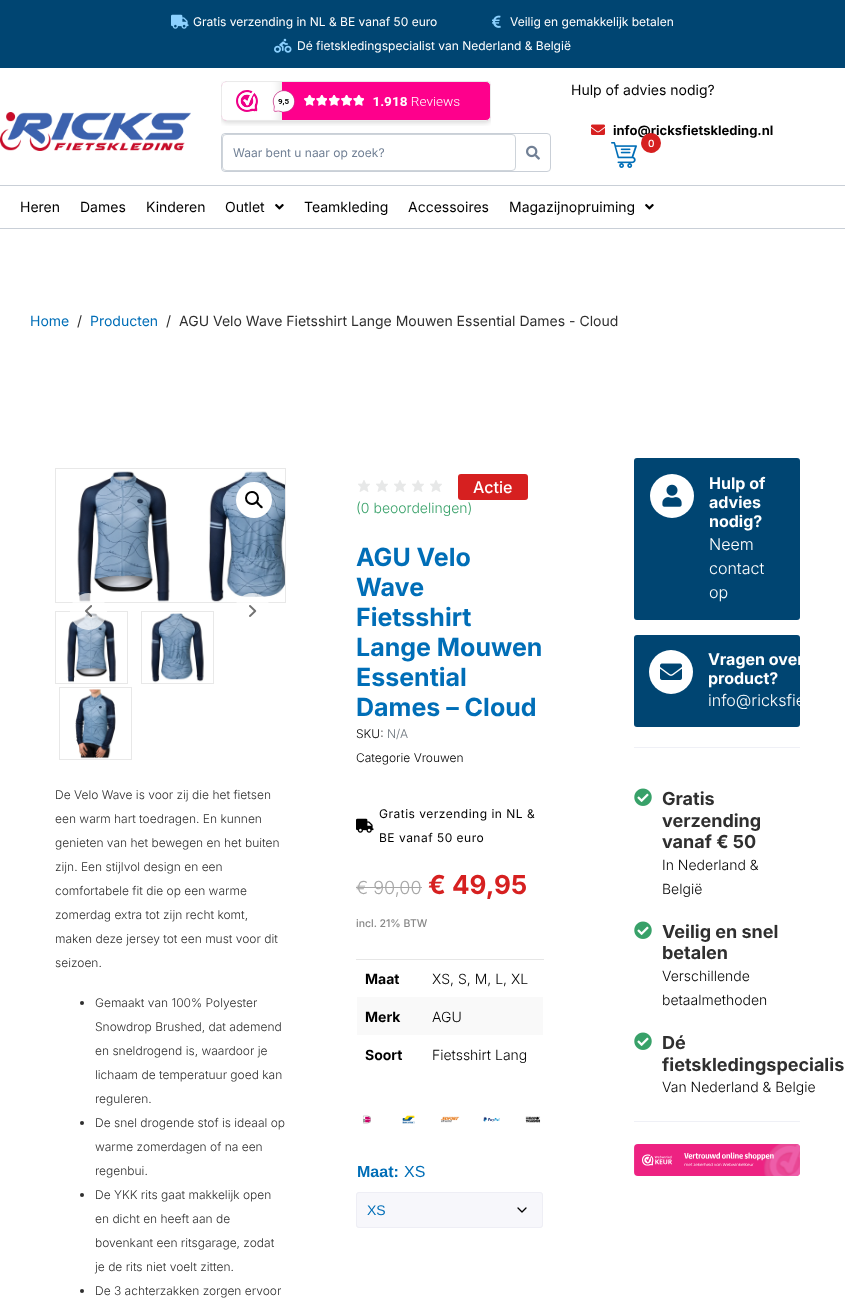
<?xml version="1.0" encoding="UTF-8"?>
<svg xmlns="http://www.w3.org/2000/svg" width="845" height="1315">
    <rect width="100%" height="100%" fill="#FFFFFF"/>
    <rect x="0" y="0" width="845" height="68" fill="#004572"/>
    <image x="171" y="14" width="18" height="15" href="img_01.png"/>
    <text x="193" y="26" font-family="Inter" font-size="12" fill="#FFFFFF">Gratis verzending in NL &amp; BE vanaf 50 euro</text>
    <image x="492" y="15" width="9" height="13" href="img_02.png"/>
    <text x="510" y="26" font-family="Inter" font-size="12" fill="#FFFFFF">Veilig en gemakkelijk betalen</text>
    <image x="274" y="38" width="18" height="15" href="img_03.png"/>
    <text x="297" y="50" font-family="Inter" font-size="12" fill="#FFFFFF">Dé fietskledingspecialist van Nederland &amp; België</text>
    <image x="0" y="112" width="191" height="39" href="img_04.png"/>
    <text x="571" y="95" font-family="Inter" font-size="14" fill="#000000">Hulp of advies nodig?</text>
    <image x="591" y="124" width="14" height="11" href="img_05.png"/>
    <text x="613" y="135" font-family="Inter" font-size="13" font-weight="700" fill="#000000">info@ricksfietskleding.nl</text>
    <image x="611" y="142" width="26" height="26" href="img_06.png"/>
    <circle cx="651" cy="143" r="10" fill="#D62020"/>
    <text x="648" y="147" font-family="Inter" font-size="10" font-weight="500" fill="#FFFFFF">0</text>
    <image x="221" y="81" width="270" height="45" href="img_07.png"/>
    <rect x="221.5" y="133.5" width="329" height="38" rx="3.5" fill="none" stroke="#C9CFD7"/>
    <rect x="222.5" y="134.5" width="293" height="36" rx="3.5" fill="#FFFFFF" stroke="#CED4DA"/>
    <text x="233" y="157" font-family="Inter" font-size="12" fill="#718095">Waar bent u naar op zoek?</text>
    <image x="526" y="145" width="14" height="15" href="img_08.png"/>
    <rect x="0" y="185" width="845" height="1" fill="#C9CFD7"/>
    <rect x="0" y="228" width="845" height="1" fill="#C9CFD7"/>
    <text x="20" y="212" font-family="Inter" font-size="14" fill="#000000">Heren</text>
    <text x="80" y="212" font-family="Inter" font-size="14" fill="#000000">Dames</text>
    <text x="146" y="212" font-family="Inter" font-size="14" fill="#000000">Kinderen</text>
    <text x="225" y="212" font-family="Inter" font-size="14" fill="#000000">Outlet</text>
    <image x="275" y="204" width="9" height="6" href="img_09.png"/>
    <text x="304" y="212" font-family="Inter" font-size="14" fill="#000000">Teamkleding</text>
    <text x="408" y="212" font-family="Inter" font-size="14" fill="#000000">Accessoires</text>
    <text x="509" y="212" font-family="Inter" font-size="14" fill="#000000">Magazijnopruiming</text>
    <image x="645" y="204" width="9" height="6" href="img_09.png"/>
    <text x="30" y="326" font-family="Inter" font-size="14" fill="#006EB7">Home</text>
    <text x="77" y="326" font-family="Inter" font-size="14" fill="#2F2F2F">/</text>
    <text x="90" y="326" font-family="Inter" font-size="14" fill="#006EB7">Producten</text>
    <text x="166" y="326" font-family="Inter" font-size="14" fill="#2F2F2F">/</text>
    <text x="179" y="326" font-family="Inter" font-size="14" fill="#2F2F2F">AGU Velo Wave Fietsshirt Lange Mouwen Essential Dames - Cloud</text>
    <rect x="55.5" y="468.5" width="230" height="134" fill="none" stroke="#E8E8E8"/>
    <image x="77" y="471" width="93" height="131" href="img_10.png"/>
    <image x="208" y="471" width="77" height="131" href="img_11.png"/>
    <circle cx="254" cy="500" r="18" fill="#FFFFFF"/>
    <circle cx="252" cy="498" r="6" fill="none" stroke="#000000" stroke-width="2"/>
    <path d="M 256.5 502 C 258 501 259.5 503.5 260 504.5 C 261 505 263.5 506.5 262.5 508 C 261 509 259.5 506.5 258.5 505.5 C 258 505 255.5 503.5 256.5 502 Z" fill="#000000"/>
    <rect x="55.5" y="611.5" width="72" height="72" fill="none" stroke="#E8E8E8"/>
    <image x="67" y="613" width="49" height="70" href="img_14.png"/>
    <circle cx="88.5" cy="611.5" r="18.5" fill="#FFFFFF" fill-opacity="0.7"/>
    <image x="85" y="605" width="7" height="12" href="img_12.png"/>
    <circle cx="252.5" cy="611.5" r="18.5" fill="#FFFFFF" fill-opacity="0.7"/>
    <image x="249" y="605" width="8" height="12" href="img_13.png"/>
    <rect x="141.5" y="611.5" width="72" height="72" fill="none" stroke="#E8E8E8"/>
    <image x="151" y="613" width="53" height="70" href="img_15.png"/>
    <rect x="59.5" y="687.5" width="72" height="72" fill="none" stroke="#E8E8E8"/>
    <image x="75" y="689" width="41" height="70" href="img_16.png"/>
    <text x="55" y="799" font-family="Inter" font-size="12" font-weight="300" fill="#2F2F2F">De Velo Wave is voor zij die het fietsen</text>
    <text x="55" y="823" font-family="Inter" font-size="12" font-weight="300" fill="#2F2F2F">een warm hart toedragen. En kunnen</text>
    <text x="55" y="847" font-family="Inter" font-size="12" font-weight="300" fill="#2F2F2F">genieten van het bewegen en het buiten</text>
    <text x="55" y="871" font-family="Inter" font-size="12" font-weight="300" fill="#2F2F2F">zijn. Een stijlvol design en een</text>
    <text x="55" y="895" font-family="Inter" font-size="12" font-weight="300" fill="#2F2F2F">comfortabele fit die op een warme</text>
    <text x="55" y="919" font-family="Inter" font-size="12" font-weight="300" fill="#2F2F2F">zomerdag extra tot zijn recht komt,</text>
    <text x="55" y="943" font-family="Inter" font-size="12" font-weight="300" fill="#2F2F2F">maken deze jersey tot een must voor dit</text>
    <text x="55" y="967" font-family="Inter" font-size="12" font-weight="300" fill="#2F2F2F">seizoen.</text>
    <circle cx="82" cy="1003" r="2" fill="#2F2F2F"/>
    <text x="95" y="1007" font-family="Inter" font-size="12" font-weight="300" fill="#2F2F2F">Gemaakt van 100% Polyester</text>
    <text x="95" y="1031" font-family="Inter" font-size="12" font-weight="300" fill="#2F2F2F">Snowdrop Brushed, dat ademend</text>
    <text x="95" y="1055" font-family="Inter" font-size="12" font-weight="300" fill="#2F2F2F">en sneldrogend is, waardoor je</text>
    <text x="95" y="1079" font-family="Inter" font-size="12" font-weight="300" fill="#2F2F2F">lichaam de temperatuur goed kan</text>
    <text x="95" y="1103" font-family="Inter" font-size="12" font-weight="300" fill="#2F2F2F">reguleren.</text>
    <circle cx="82" cy="1123" r="2" fill="#2F2F2F"/>
    <text x="95" y="1127" font-family="Inter" font-size="12" font-weight="300" fill="#2F2F2F">De snel drogende stof is ideaal op</text>
    <text x="95" y="1151" font-family="Inter" font-size="12" font-weight="300" fill="#2F2F2F">warme zomerdagen of na een</text>
    <text x="95" y="1175" font-family="Inter" font-size="12" font-weight="300" fill="#2F2F2F">regenbui.</text>
    <circle cx="82" cy="1195" r="2" fill="#2F2F2F"/>
    <text x="95" y="1199" font-family="Inter" font-size="12" font-weight="300" fill="#2F2F2F">De YKK rits gaat makkelijk open</text>
    <text x="95" y="1223" font-family="Inter" font-size="12" font-weight="300" fill="#2F2F2F">en dicht en heeft aan de</text>
    <text x="95" y="1247" font-family="Inter" font-size="12" font-weight="300" fill="#2F2F2F">bovenkant een ritsgarage, zodat</text>
    <text x="95" y="1271" font-family="Inter" font-size="12" font-weight="300" fill="#2F2F2F">je de rits niet voelt zitten.</text>
    <circle cx="82" cy="1291" r="2" fill="#2F2F2F"/>
    <text x="95" y="1295" font-family="Inter" font-size="12" font-weight="300" fill="#2F2F2F">De 3 achterzakken zorgen ervoor</text>
    <rect x="458" y="474" width="70" height="26" rx="3" fill="#D62020"/>
    <text x="473" y="493" font-family="Inter" font-size="16" font-weight="500" fill="#FFFFFF">Actie</text>
    <image x="358" y="480" width="12" height="12" href="img_17.png"/>
    <image x="376" y="480" width="12" height="12" href="img_17.png"/>
    <image x="394" y="480" width="12" height="12" href="img_17.png"/>
    <image x="412" y="480" width="12" height="12" href="img_17.png"/>
    <image x="430" y="480" width="12" height="12" href="img_17.png"/>
    <text x="356" y="513" font-family="Inter" font-size="14" font-weight="300" fill="#38A169">(0 beoordelingen)</text>
    <text font-family="Inter" font-size="25" font-weight="700" fill="#006EB7">
        <tspan x="356" y="566">AGU Velo</tspan>
        <tspan x="356" y="596">Wave</tspan>
        <tspan x="356" y="626">Fietsshirt</tspan>
        <tspan x="356" y="656">Lange Mouwen</tspan>
        <tspan x="356" y="686">Essential</tspan>
        <tspan x="356" y="716">Dames – Cloud</tspan>
    </text>
    <text x="356" y="738" font-family="Inter" font-size="12" font-weight="300" fill="#000000">SKU:</text>
    <text x="387" y="738" font-family="Inter" font-size="12" font-weight="300" fill="#6C757D">N/A</text>
    <text x="356" y="762" font-family="Inter" font-size="12" font-weight="300" fill="#000000">Categorie Vrouwen</text>
    <image x="356" y="818" width="18" height="15" href="img_18.png"/>
    <text x="379" y="818" font-family="Inter" font-size="12" letter-spacing="0.5" fill="#000000">Gratis verzending in NL &amp;</text>
    <text x="379" y="842" font-family="Inter" font-size="12" letter-spacing="0.5" fill="#000000">BE vanaf 50 euro</text>
    <text x="356" y="894" font-family="Inter" font-size="18" font-weight="300" fill="#A7A7A7">€ 90,00</text>
    <rect x="356" y="887" width="66" height="1" fill="#A7A7A7"/>
    <text x="428" y="894" font-family="Inter" font-size="26" font-weight="700" fill="#D62020">€ 49,95</text>
    <text x="356" y="927" font-family="Inter" font-size="10.5" font-weight="500" fill="#878787">incl. 21% BTW</text>
    <rect x="356" y="959" width="188" height="1" fill="#E6E6E6"/>
    <text x="365" y="984" font-family="Inter" font-size="14" font-weight="700" fill="#000000">Maat</text>
    <text x="432" y="984" font-family="Inter" font-size="14" font-weight="300" fill="#000000">XS, S, M, L, XL</text>
    <rect x="357" y="997" width="186" height="38" fill="#F9F9F9"/>
    <text x="365" y="1022" font-family="Inter" font-size="14" font-weight="700" fill="#000000">Merk</text>
    <text x="432" y="1022" font-family="Inter" font-size="14" font-weight="300" fill="#000000">AGU</text>
    <text x="365" y="1060" font-family="Inter" font-size="14" font-weight="700" fill="#000000">Soort</text>
    <text x="432" y="1060" font-family="Inter" font-size="14" font-weight="300" fill="#000000">Fietsshirt Lang</text>
    <image x="363" y="1115" width="8" height="9" href="img_19.png"/>
    <image x="402" y="1115" width="13" height="9" href="img_20.png"/>
    <image x="440" y="1116" width="20" height="7" href="img_21.png"/>
    <image x="483" y="1116" width="17" height="6" href="img_22.png"/>
    <image x="525" y="1116" width="16" height="7" href="img_23.png"/>
    <text x="357" y="1177" font-family="Liberation Sans" font-size="16" font-weight="700" fill="#006EB7">Maat:</text>
    <text x="404" y="1177" font-family="Liberation Sans" font-size="16" fill="#006EB7">XS</text>
    <rect x="356" y="1192" width="187" height="36" rx="3" fill="#F7F7FB"/>
    <path d="M 518 1208 L 522 1212 L 526 1208" fill="none" stroke="#000000" stroke-width="1.3" stroke-linecap="round" stroke-linejoin="round"/>
    <rect x="356.5" y="1192.5" width="186" height="35" rx="2.5" fill="none" stroke="#EEEEF5"/>
    <text x="367" y="1215" font-family="Liberation Sans" font-size="14" fill="#006EB7">XS</text>
    <rect x="634" y="458" width="166" height="162" rx="3" fill="#004572"/>
    <circle cx="672" cy="496" r="22" fill="#FFFFFF"/>
    <image x="662" y="484" width="20" height="23" href="img_24.png"/>
    <text font-family="Inter" font-size="16" font-weight="700" fill="#FFFFFF">
        <tspan x="709" y="489">Hulp of</tspan>
        <tspan x="709" y="508">advies</tspan>
        <tspan x="709" y="527">nodig?</tspan>
    </text>
    <text font-family="Inter" font-size="16" font-weight="300" fill="#FFFFFF">
        <tspan x="709" y="550">Neem</tspan>
        <tspan x="709" y="574">contact</tspan>
        <tspan x="709" y="598">op</tspan>
    </text>
    <rect x="634" y="635" width="166" height="92" rx="3" fill="#004572"/>
    <circle cx="671" cy="672" r="22" fill="#FFFFFF"/>
    <image x="660" y="663" width="22" height="17" href="img_25.png"/>
    <text font-family="Inter" font-size="16" font-weight="700" fill="#FFFFFF">
        <tspan x="708" y="665">Vragen over</tspan>
        <tspan x="708" y="684">product?</tspan>
    </text>
    <text x="708" y="706" font-family="Inter" font-size="16" font-weight="300" fill="#FFFFFF">info@ricksfie</text>
    <rect x="634" y="747" width="166" height="1" fill="#EFF0F6"/>
    <image x="634" y="788" width="18" height="18" href="img_26.png"/>
    <text font-family="Inter" font-size="18" font-weight="700" fill="#2F2F2F">
        <tspan x="662" y="805">Gratis</tspan>
        <tspan x="662" y="827">verzending</tspan>
        <tspan x="662" y="848">vanaf € 50</tspan>
    </text>
    <text font-family="Inter" font-size="14" font-weight="300" fill="#000000">
        <tspan x="662" y="870">In Nederland &amp;</tspan>
        <tspan x="662" y="894">België</tspan>
    </text>
    <image x="634" y="921" width="18" height="18" href="img_26.png"/>
    <text font-family="Inter" font-size="18" font-weight="700" fill="#2F2F2F">
        <tspan x="662" y="938">Veilig en snel</tspan>
        <tspan x="662" y="959">betalen</tspan>
    </text>
    <text font-family="Inter" font-size="14" font-weight="300" fill="#000000">
        <tspan x="662" y="981">Verschillende</tspan>
        <tspan x="662" y="1005">betaalmethoden</tspan>
    </text>
    <image x="634" y="1032" width="18" height="18" href="img_26.png"/>
    <text font-family="Inter" font-size="18" font-weight="700" fill="#2F2F2F">
        <tspan x="662" y="1049">Dé</tspan>
        <tspan x="662" y="1071">fietskledingspecialis</tspan>
    </text>
    <text x="662" y="1092" font-family="Inter" font-size="14" font-weight="300" fill="#000000">Van Nederland &amp; Belgie</text>
    <rect x="634" y="1121" width="166" height="1" fill="#EFF0F6"/>
    <image x="634" y="1144" width="166" height="32" href="img_27.png"/>
</svg>
